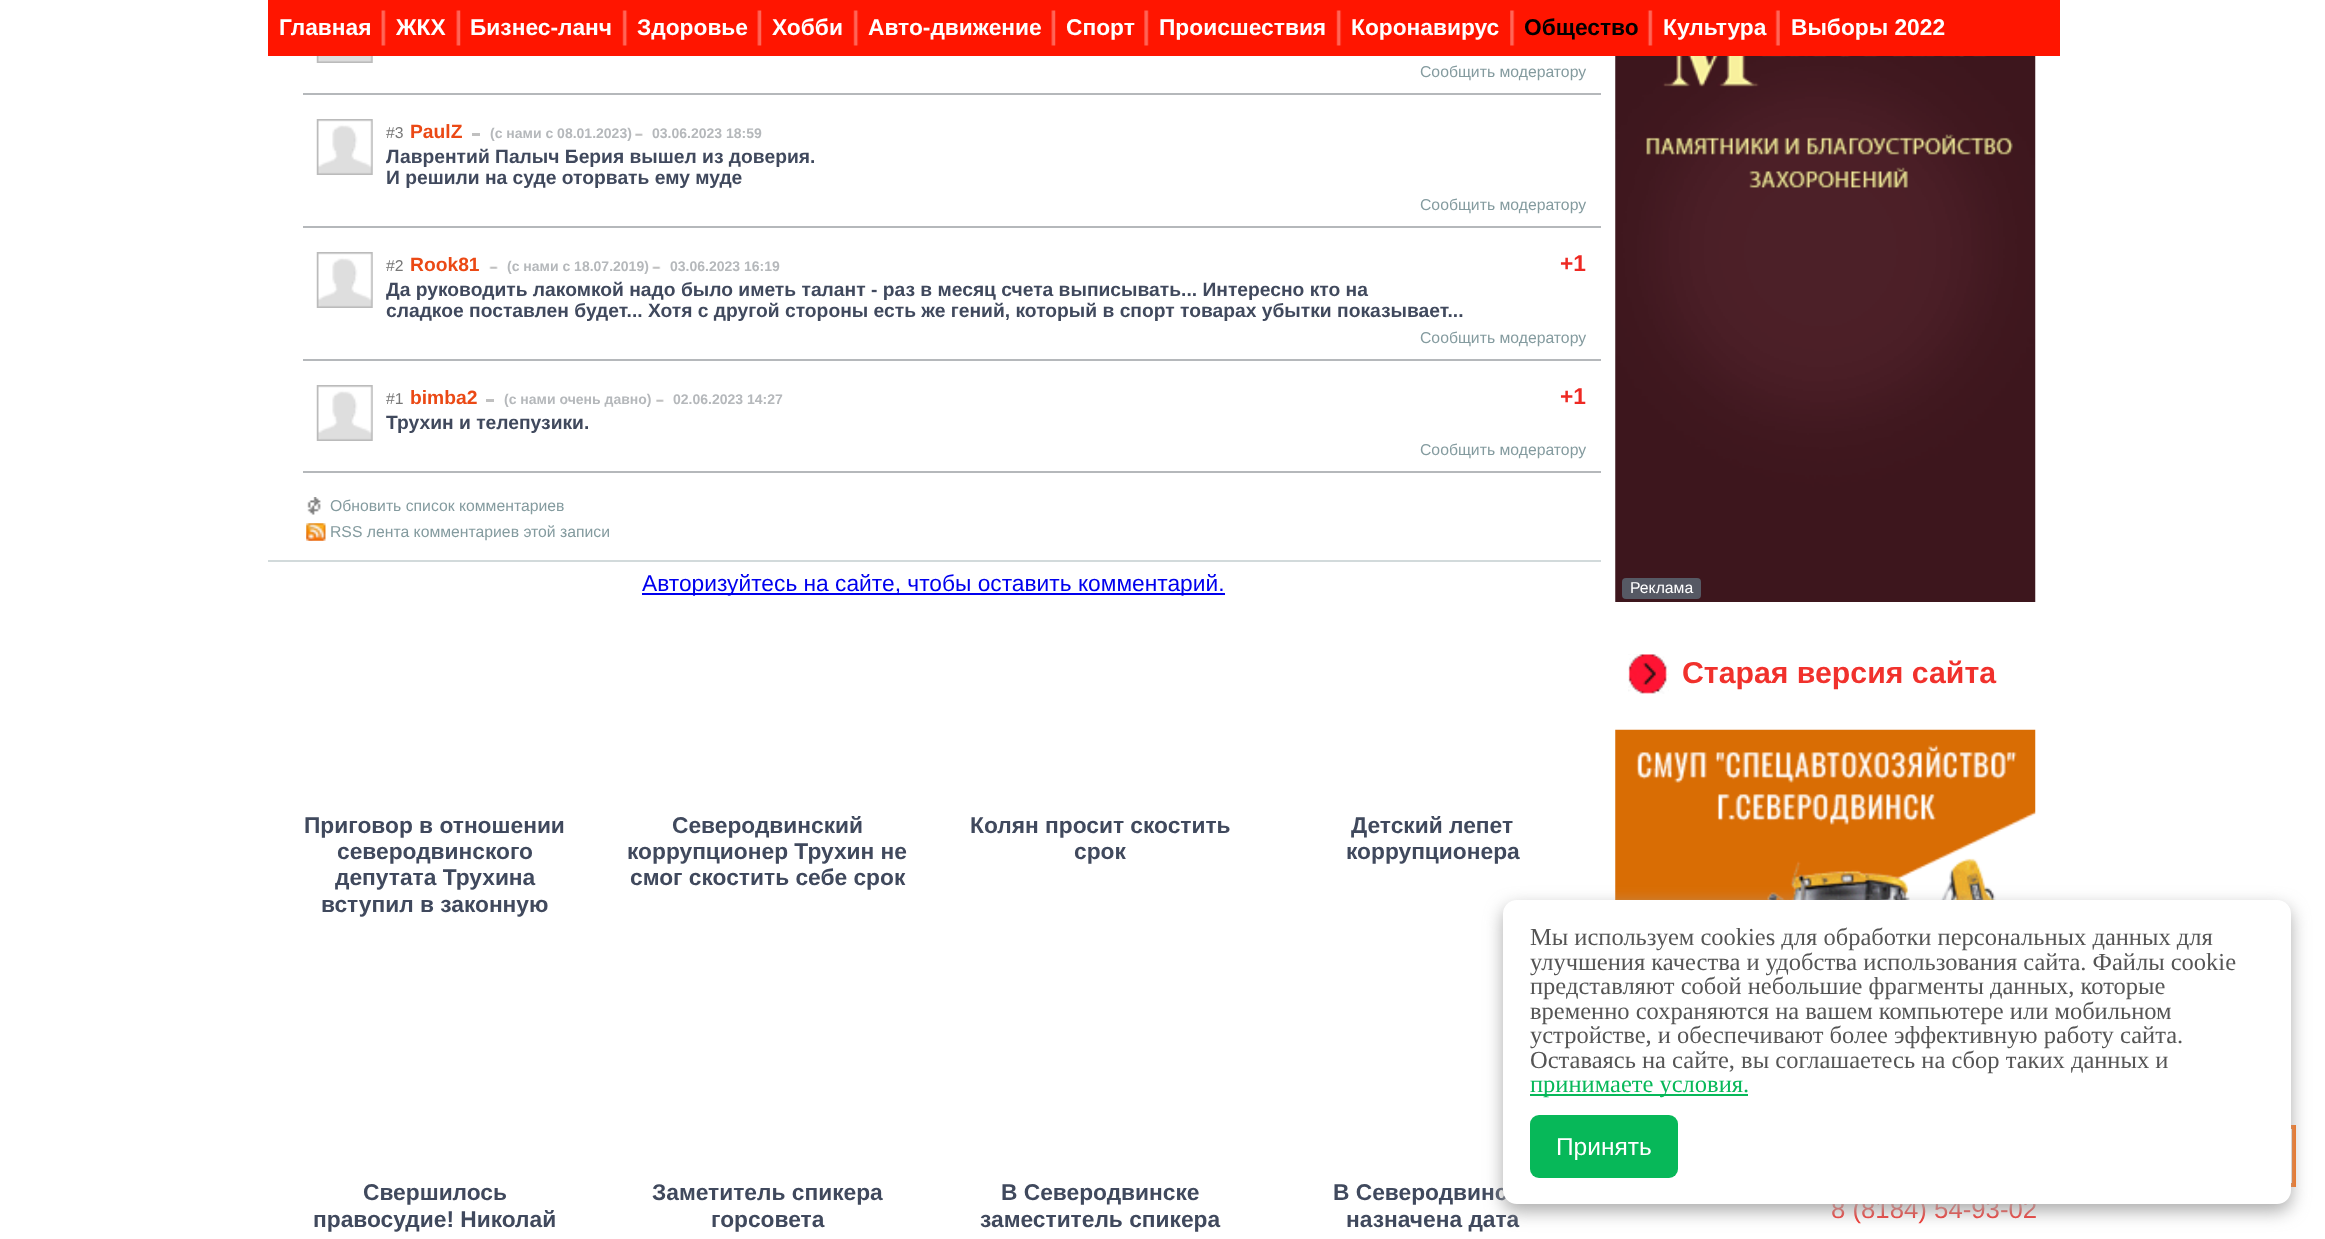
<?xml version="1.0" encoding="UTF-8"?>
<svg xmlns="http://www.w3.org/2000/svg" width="2325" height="1239">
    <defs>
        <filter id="blur1" x="-50%" y="-200%" width="200%" height="500%"><feGaussianBlur stdDeviation="9"/></filter>
    </defs>
    <rect width="100%" height="100%" fill="#FFFFFF"/>
    <rect x="268" y="0" width="1792" height="56" fill="#FF1500"/>
    <text x="279" y="35" font-family="Liberation Sans" font-size="22.75" font-weight="700" fill="#FFFFFF">Главная</text>
    <image x="381" y="10" width="5" height="36" href="img_01.png"/>
    <text x="396" y="35" font-family="Liberation Sans" font-size="22.75" font-weight="700" fill="#FFFFFF">ЖКХ</text>
    <image x="456" y="10" width="5" height="36" href="img_02.png"/>
    <text x="470" y="35" font-family="Liberation Sans" font-size="22.75" font-weight="700" fill="#FFFFFF">Бизнес-ланч</text>
    <image x="622" y="10" width="6" height="36" href="img_03.png"/>
    <text x="637" y="35" font-family="Liberation Sans" font-size="22.75" font-weight="700" fill="#FFFFFF">Здоровье</text>
    <image x="757" y="10" width="5" height="36" href="img_02.png"/>
    <text x="772" y="35" font-family="Liberation Sans" font-size="22.75" font-weight="700" fill="#FFFFFF">Хобби</text>
    <image x="853" y="10" width="6" height="36" href="img_03.png"/>
    <text x="868" y="35" font-family="Liberation Sans" font-size="22.75" font-weight="700" fill="#FFFFFF">Авто-движение</text>
    <image x="1051" y="10" width="5" height="36" href="img_02.png"/>
    <text x="1066" y="35" font-family="Liberation Sans" font-size="22.75" font-weight="700" fill="#FFFFFF">Спорт</text>
    <image x="1144" y="10" width="5" height="36" href="img_04.png"/>
    <text x="1159" y="35" font-family="Liberation Sans" font-size="22.75" font-weight="700" fill="#FFFFFF">Происшествия</text>
    <image x="1336" y="10" width="6" height="36" href="img_03.png"/>
    <text x="1351" y="35" font-family="Liberation Sans" font-size="22.75" font-weight="700" fill="#FFFFFF">Коронавирус</text>
    <image x="1510" y="10" width="5" height="36" href="img_05.png"/>
    <text x="1524" y="35" font-family="Liberation Sans" font-size="22.75" font-weight="700" fill="#000000">Общество</text>
    <image x="1647" y="10" width="6" height="36" href="img_06.png"/>
    <text x="1663" y="35" font-family="Liberation Sans" font-size="22.75" font-weight="700" fill="#FFFFFF">Культура</text>
    <image x="1775" y="10" width="5" height="36" href="img_07.png"/>
    <text x="1791" y="35" font-family="Liberation Sans" font-size="22.75" font-weight="700" fill="#FFFFFF">Выборы 2022</text>
    <rect x="303" y="93" width="1298" height="2" fill="#B5B8BB"/>
    <image x="316" y="56" width="57" height="7" href="img_08.png"/>
    <text x="1420" y="77" font-family="Liberation Sans" font-size="15.75" fill="#849B9F">Сообщить модератору</text>
    <rect x="303" y="226" width="1298" height="2" fill="#B5B8BB"/>
    <image x="316" y="119" width="57" height="56" href="img_09.png"/>
    <text x="386" y="138" font-family="Liberation Sans" font-size="15.75" fill="#777777">#3</text>
    <text x="410" y="138" font-family="Liberation Sans" font-size="19.25" font-weight="700" fill="#EB4915">PaulZ</text>
    <text x="490" y="138" font-family="Liberation Sans" font-size="14" font-weight="700" fill="#B5B8BB">(c нами с 08.01.2023)</text>
    <rect x="472" y="133" width="8" height="3" fill="#C0C0C0"/>
    <image x="635" y="133" width="8" height="3" href="img_10.png"/>
    <text x="652" y="138" font-family="Liberation Sans" font-size="14" font-weight="700" fill="#B5B8BB">03.06.2023 18:59</text>
    <text font-family="Liberation Sans" font-size="19.25" font-weight="700" fill="#40495D">
        <tspan x="386" y="163">Лаврентий Палыч Берия вышел из доверия.</tspan>
        <tspan x="386" y="184">И решили на суде оторвать ему муде</tspan>
    </text>
    <text x="1420" y="210" font-family="Liberation Sans" font-size="15.75" fill="#849B9F">Сообщить модератору</text>
    <rect x="303" y="359" width="1298" height="2" fill="#B5B8BB"/>
    <image x="316" y="252" width="57" height="56" href="img_09.png"/>
    <text x="386" y="271" font-family="Liberation Sans" font-size="15.75" fill="#777777">#2</text>
    <text x="410" y="271" font-family="Liberation Sans" font-size="19.25" font-weight="700" fill="#EB4915">Rook81</text>
    <image x="489" y="266" width="9" height="3" href="img_11.png"/>
    <text x="507" y="271" font-family="Liberation Sans" font-size="14" font-weight="700" fill="#B5B8BB">(c нами с 18.07.2019)</text>
    <image x="652" y="266" width="9" height="3" href="img_12.png"/>
    <text x="670" y="271" font-family="Liberation Sans" font-size="14" font-weight="700" fill="#B5B8BB">03.06.2023 16:19</text>
    <text x="1560" y="271" font-family="Liberation Sans" font-size="22.75" font-weight="700" fill="#EE2923">+1</text>
    <text font-family="Liberation Sans" font-size="19.25" font-weight="700" fill="#40495D">
        <tspan x="386" y="296">Да руководить лакомкой надо было иметь талант - раз в месяц счета выписывать... Интересно кто на</tspan>
        <tspan x="386" y="317">сладкое поставлен будет... Хотя с другой стороны есть же гений, который в спорт товарах убытки показывает...</tspan>
    </text>
    <text x="1420" y="343" font-family="Liberation Sans" font-size="15.75" fill="#849B9F">Сообщить модератору</text>
    <rect x="303" y="471" width="1298" height="2" fill="#B5B8BB"/>
    <image x="316" y="385" width="57" height="56" href="img_13.png"/>
    <text x="386" y="404" font-family="Liberation Sans" font-size="15.75" fill="#777777">#1</text>
    <text x="410" y="404" font-family="Liberation Sans" font-size="19.25" font-weight="700" fill="#EB4915">bimba2</text>
    <text x="504" y="404" font-family="Liberation Sans" font-size="14" font-weight="700" fill="#B5B8BB">(c нами очень давно)</text>
    <rect x="486" y="399" width="8" height="3" fill="#C0C0C0"/>
    <image x="656" y="399" width="8" height="3" href="img_10.png"/>
    <text x="673" y="404" font-family="Liberation Sans" font-size="14" font-weight="700" fill="#B5B8BB">02.06.2023 14:27</text>
    <text x="1560" y="404" font-family="Liberation Sans" font-size="22.75" font-weight="700" fill="#EE2923">+1</text>
    <text x="386" y="429" font-family="Liberation Sans" font-size="19.25" font-weight="700" fill="#40495D">Трухин и телепузики.</text>
    <text x="1420" y="455" font-family="Liberation Sans" font-size="15.75" fill="#849B9F">Сообщить модератору</text>
    <image x="307" y="497" width="14" height="18" href="img_14.png"/>
    <text x="330" y="511" font-family="Liberation Sans" font-size="15.75" fill="#849B9F">Обновить список комментариев</text>
    <image x="306" y="523" width="20" height="18" href="img_15.png"/>
    <text x="330" y="537" font-family="Liberation Sans" font-size="15.75" fill="#849B9F">RSS лента комментариев этой записи</text>
    <rect x="268" y="560" width="1333" height="2" fill="#D2DADB"/>
    <rect x="642" y="593" width="583" height="2" fill="#0000EE"/>
    <text x="642" y="591" font-family="Liberation Sans" font-size="22.75" fill="#0000EE">Авторизуйтесь на сайте, чтобы оставить комментарий.</text>
    <text x="304" y="833" font-family="Liberation Sans" font-size="22.75" font-weight="700" fill="#40495D">Приговор в отношении</text>
    <text x="337" y="859" font-family="Liberation Sans" font-size="22.75" font-weight="700" fill="#40495D">северодвинского</text>
    <text x="335" y="885" font-family="Liberation Sans" font-size="22.75" font-weight="700" fill="#40495D">депутата Трухина</text>
    <text x="321" y="912" font-family="Liberation Sans" font-size="22.75" font-weight="700" fill="#40495D">вступил в законную</text>
    <text x="672" y="833" font-family="Liberation Sans" font-size="22.75" font-weight="700" fill="#40495D">Северодвинский</text>
    <text x="627" y="859" font-family="Liberation Sans" font-size="22.75" font-weight="700" fill="#40495D">коррупционер Трухин не</text>
    <text x="630" y="885" font-family="Liberation Sans" font-size="22.75" font-weight="700" fill="#40495D">смог скостить себе срок</text>
    <text x="970" y="833" font-family="Liberation Sans" font-size="22.75" font-weight="700" fill="#40495D">Колян просит скостить</text>
    <text x="1074" y="859" font-family="Liberation Sans" font-size="22.75" font-weight="700" fill="#40495D">срок</text>
    <text x="1351" y="833" font-family="Liberation Sans" font-size="22.75" font-weight="700" fill="#40495D">Детский лепет</text>
    <text x="1346" y="859" font-family="Liberation Sans" font-size="22.75" font-weight="700" fill="#40495D">коррупционера</text>
    <text x="363" y="1200" font-family="Liberation Sans" font-size="22.75" font-weight="700" fill="#40495D">Свершилось</text>
    <text x="313" y="1227" font-family="Liberation Sans" font-size="22.75" font-weight="700" fill="#40495D">правосудие! Николай</text>
    <text x="652" y="1200" font-family="Liberation Sans" font-size="22.75" font-weight="700" fill="#40495D">Заметитель спикера</text>
    <text x="711" y="1227" font-family="Liberation Sans" font-size="22.75" font-weight="700" fill="#40495D">горсовета</text>
    <text x="1001" y="1200" font-family="Liberation Sans" font-size="22.75" font-weight="700" fill="#40495D">В Северодвинске</text>
    <text x="980" y="1227" font-family="Liberation Sans" font-size="22.75" font-weight="700" fill="#40495D">заместитель спикера</text>
    <text x="1333" y="1200" font-family="Liberation Sans" font-size="22.75" font-weight="700" fill="#40495D">В Северодвинс</text>
    <text x="1346" y="1227" font-family="Liberation Sans" font-size="22.75" font-weight="700" fill="#40495D">назначена дата</text>
    <image x="1615" y="56" width="421" height="546" href="img_16.png"/>
    <rect x="1622" y="578" width="79" height="21" rx="4" fill="#565964"/>
    <text x="1630" y="593" font-family="Liberation Sans" font-size="15.75" fill="#FFFFFF">Реклама</text>
    <image x="1628" y="654" width="41" height="40" href="img_17.png"/>
    <text x="1682" y="683" font-family="Liberation Sans" font-size="30.25" font-weight="700" fill="#F1312C">Старая версия сайта</text>
    <image x="1615" y="729" width="421" height="171" href="img_18.png"/>
    <text x="1831" y="1218" font-family="Liberation Sans" font-size="25.75" fill="#F1312C">8 (8184) 54-93-02</text>
    <rect x="2212" y="1127" width="82" height="58" fill="none" stroke="#FF6600" stroke-width="4"/>
    <rect x="1503" y="907" width="788" height="304" rx="14" fill="#AAAAAA" filter="url(#blur1)"/>
    <rect x="1503" y="900" width="788" height="304" rx="14" fill="#FFFFFF"/>
    <text font-family="Liberation Serif" font-size="24.5" fill="#555555">
        <tspan x="1530" y="945">Мы используем cookies для обработки персональных данных для</tspan>
        <tspan x="1530" y="970">улучшения качества и удобства использования сайта. Файлы cookie</tspan>
        <tspan x="1530" y="994">представляют собой небольшие фрагменты данных, которые</tspan>
        <tspan x="1530" y="1019">временно сохраняются на вашем компьютере или мобильном</tspan>
        <tspan x="1530" y="1043">устройстве, и обеспечивают более эффективную работу сайта.</tspan>
        <tspan x="1530" y="1068">Оставаясь на сайте, вы соглашаетесь на сбор таких данных и</tspan>
    </text>
    <rect x="1530" y="1094" width="218" height="2" fill="#07B859"/>
    <text x="1530" y="1092" font-family="Liberation Serif" font-size="24.5" fill="#07B859">принимаете условия.</text>
    <rect x="1530" y="1115" width="148" height="63" rx="9" fill="#07B859"/>
    <text x="1556" y="1155" font-family="Liberation Sans" font-size="24.5" fill="#FFFFFF">Принять</text>
</svg>
